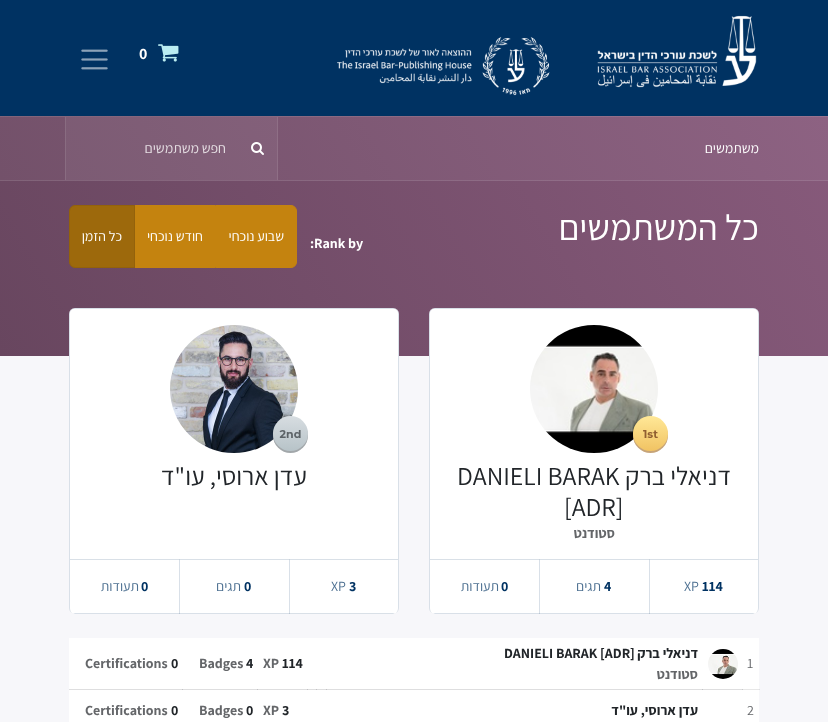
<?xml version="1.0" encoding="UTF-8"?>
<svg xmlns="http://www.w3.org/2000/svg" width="828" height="722">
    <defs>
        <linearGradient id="g1" gradientUnits="userSpaceOnUse" x1="776" y1="27" x2="52" y2="445"><stop offset="0" stop-color="#875A7B"/><stop offset="1" stop-color="#68465F"/></linearGradient>
        <linearGradient id="g2" gradientUnits="userSpaceOnUse" x1="776" y1="27" x2="52" y2="445"><stop offset="0" stop-color="#8D6282"/><stop offset="1" stop-color="#704F67"/></linearGradient>
        <linearGradient id="g3" gradientUnits="userSpaceOnUse" x1="776" y1="27" x2="52" y2="445"><stop offset="0" stop-color="#936A88"/><stop offset="1" stop-color="#77586F"/></linearGradient>
        <linearGradient id="g4" gradientUnits="userSpaceOnUse" x1="776" y1="27" x2="52" y2="445"><stop offset="0" stop-color="#98728F"/><stop offset="1" stop-color="#7E6176"/></linearGradient>
    </defs>
    <rect width="100%" height="100%" fill="#F7F7FA"/>
    <rect x="759" y="689" width="1" height="1" fill="#DFE0E3"/>
    <rect x="0" y="0" width="828" height="116" fill="#003262"/>
    <image x="337" y="15" width="420" height="81" href="img_01.png"/>
    <image x="158" y="44" width="21" height="18" href="img_02.png"/>
    <text x="139" y="59" font-family="Assistant" font-size="16" font-weight="700" fill="#FFFFFF">0</text>
    <image x="81" y="49" width="27" height="21" href="img_03.png"/>
    <rect x="0" y="181" width="828" height="175" fill="url(#g1)"/>
    <rect x="0" y="117" width="828" height="63" fill="url(#g2)"/>
    <rect x="66" y="117" width="211" height="63" fill="url(#g3)"/>
    <rect x="0" y="180" width="828" height="1" fill="url(#g4)"/>
    <rect x="0" y="116" width="828" height="1" fill="url(#g4)"/>
    <text x="759" y="153" font-family="Assistant" font-size="14" direction="rtl" fill="#FFFFFF">משתמשים</text>
    <rect x="277" y="117" width="1" height="63" fill="#8F6F86"/>
    <rect x="65" y="117" width="1" height="63" fill="#896C81"/>
    <image x="251" y="142" width="13" height="13" href="img_04.png"/>
    <text x="226" y="153" font-family="Assistant" font-size="14" direction="rtl" fill="#E6DFE4">חפש משתמשים</text>
    <text x="759" y="240" font-family="Assistant" font-size="36" direction="rtl" fill="#FFFFFF">כל המשתמשים</text>
    <text x="310" y="248" font-family="Assistant" font-size="14" font-weight="700" fill="#FFFFFF">:Rank by</text>
    <path d="M 215.5 205.5 H 291 C 294 205.5 296.5 208 296.5 211 V 262 C 296.5 265 294 267.5 291 267.5 H 215.5 Z" fill="#C4830F" stroke="#C4830F"/>
    <text x="284" y="241" font-family="Assistant" font-size="14" direction="rtl" fill="#FFFFFF">שבוע נוכחי</text>
    <rect x="135" y="205" width="80" height="63" fill="#C4830F"/>
    <text x="203" y="241" font-family="Assistant" font-size="14" direction="rtl" fill="#FFFFFF">חודש נוכחי</text>
    <path d="M 75 205.5 H 134.5 V 267.5 H 75 C 72 267.5 69.5 265 69.5 262 V 211 C 69.5 208 72 205.5 75 205.5 Z" fill="#9D690C" stroke="#93620B"/>
    <text x="122" y="241" font-family="Assistant" font-size="14" direction="rtl" fill="#FFFFFF">כל הזמן</text>
    <rect x="429" y="308" width="330" height="306" rx="6" fill="#FFFFFF"/>
    <path d="M 435 308 H 753 C 756 308 759 311 759 314 V 608 C 759 611 756 614 753 614 H 435 C 432 614 429 611 429 608 V 314 C 429 311 432 308 435 308 Z M 435 309 H 753 C 756 309 758 311 758 314 V 608 C 758 611 756 614 753 614 H 435 C 432 614 430 611 430 608 V 314 C 430 311 432 309 435 309 Z" fill="#003262" fill-opacity="0.15" fill-rule="evenodd"/>
    <path d="M 435 309 C 432 309 430 311 430 314 V 560 H 758 V 314 C 758 311 756 309 753 309 Z" fill="#FFFFFF" fill-opacity="0.9"/>
    <image x="530" y="325" width="128" height="128" href="img_05.png"/>
    <image x="633" y="416" width="35" height="37" href="img_06.png"/>
    <text x="731" y="485" font-family="Assistant" font-size="25.75" direction="rtl" fill="#212529">דניאלי ברק</text>
    <text x="457" y="485" font-family="Assistant" font-size="25.75" fill="#212529">DANIELI BARAK</text>
    <text x="564" y="516" font-family="Assistant" font-size="25.75" fill="#212529">[ADR]</text>
    <text x="615" y="538" font-family="Assistant" font-size="14" font-weight="700" direction="rtl" fill="#646669">סטודנט</text>
    <rect x="649" y="559" width="109" height="1" fill="#D9E0E7"/>
    <path d="M 649 613 V 614 H 753 L 755 613 Z" fill="#D9E0E7"/>
    <text x="702" y="591" font-family="Assistant" font-size="14" font-weight="700" fill="#003262">114</text>
    <text x="684" y="591" font-family="Assistant" font-size="14" fill="#4D7091">XP</text>
    <path d="M 539 559 H 650 L 649 560 H 539 Z" fill="#D9E0E7"/>
    <path d="M 650 559 V 614 L 649 613 V 560 Z" fill="#003262" fill-opacity="0.15"/>
    <path d="M 650 614 H 539 V 613 H 649 Z" fill="#003262" fill-opacity="0.15"/>
    <text x="604" y="591" font-family="Assistant" font-size="14" font-weight="700" fill="#003262">4</text>
    <text x="601" y="591" font-family="Assistant" font-size="14" direction="rtl" fill="#4D7091">תגים</text>
    <path d="M 430 559 H 540 L 539 560 H 430 Z" fill="#D9E0E7"/>
    <path d="M 540 559 V 614 L 539 613 V 560 Z" fill="#003262" fill-opacity="0.15"/>
    <path d="M 540 614 L 539 613 H 433 L 435 614 Z" fill="#003262" fill-opacity="0.15"/>
    <text x="501" y="591" font-family="Assistant" font-size="14" font-weight="700" fill="#003262">0</text>
    <text x="499" y="591" font-family="Assistant" font-size="14" direction="rtl" fill="#4D7091">תעודות</text>
    <rect x="69" y="308" width="330" height="306" rx="6" fill="#FFFFFF"/>
    <path d="M 75 308 H 393 C 396 308 399 311 399 314 V 608 C 399 611 396 614 393 614 H 75 C 72 614 69 611 69 608 V 314 C 69 311 72 308 75 308 Z M 75 309 H 393 C 396 309 398 311 398 314 V 608 C 398 611 396 614 393 614 H 75 C 72 614 70 611 70 608 V 314 C 70 311 72 309 75 309 Z" fill="#003262" fill-opacity="0.15" fill-rule="evenodd"/>
    <path d="M 75 309 C 72 309 70 311 70 314 V 560 H 398 V 314 C 398 311 396 309 393 309 Z" fill="#FFFFFF" fill-opacity="0.9"/>
    <image x="170" y="325" width="128" height="128" href="img_07.png"/>
    <image x="273" y="416" width="35" height="37" href="img_08.png"/>
    <text x="307" y="485" font-family="Assistant" font-size="25.75" direction="rtl" fill="#212529">עדן ארוסי, עו"ד</text>
    <rect x="289" y="559" width="109" height="1" fill="#D9E0E7"/>
    <path d="M 289 613 V 614 H 393 L 395 613 Z" fill="#D9E0E7"/>
    <text x="349" y="591" font-family="Assistant" font-size="14" font-weight="700" fill="#003262">3</text>
    <text x="331" y="591" font-family="Assistant" font-size="14" fill="#4D7091">XP</text>
    <path d="M 179 559 H 290 L 289 560 H 179 Z" fill="#D9E0E7"/>
    <path d="M 290 559 V 614 L 289 613 V 560 Z" fill="#003262" fill-opacity="0.15"/>
    <path d="M 290 614 H 179 V 613 H 289 Z" fill="#003262" fill-opacity="0.15"/>
    <text x="244" y="591" font-family="Assistant" font-size="14" font-weight="700" fill="#003262">0</text>
    <text x="241" y="591" font-family="Assistant" font-size="14" direction="rtl" fill="#4D7091">תגים</text>
    <path d="M 70 559 H 180 L 179 560 H 70 Z" fill="#D9E0E7"/>
    <path d="M 180 559 V 614 L 179 613 V 560 Z" fill="#003262" fill-opacity="0.15"/>
    <path d="M 180 614 L 179 613 H 73 L 75 614 Z" fill="#003262" fill-opacity="0.15"/>
    <text x="141" y="591" font-family="Assistant" font-size="14" font-weight="700" fill="#003262">0</text>
    <text x="139" y="591" font-family="Assistant" font-size="14" direction="rtl" fill="#4D7091">תעודות</text>
    <rect x="69" y="638" width="690" height="51" fill="#FFFFFF"/>
    <rect x="742" y="689" width="17" height="1" fill="#E7E7E7"/>
    <rect x="69" y="689" width="674" height="1" fill="#DEDEDF"/>
    <rect x="742" y="689" width="1" height="1" fill="#C9CACB"/>
    <rect x="702" y="689" width="1" height="1" fill="#C2C2C4"/>
    <rect x="326" y="689" width="1" height="1" fill="#C2C2C4"/>
    <rect x="316" y="689" width="1" height="1" fill="#C2C2C4"/>
    <rect x="307" y="689" width="1" height="1" fill="#C2C2C4"/>
    <rect x="257" y="689" width="1" height="1" fill="#C2C2C4"/>
    <text x="747" y="668" font-family="Assistant" font-size="14" fill="#646669">1</text>
    <image x="708" y="649" width="30" height="30" href="img_09.png"/>
    <text x="698" y="658" font-family="Assistant" font-size="14" font-weight="700" direction="rtl" fill="#212529">דניאלי ברק</text>
    <text x="504" y="658" font-family="Assistant" font-size="14" font-weight="700" fill="#212529">DANIELI BARAK [ADR]</text>
    <text x="698" y="679" font-family="Assistant" font-size="14" font-weight="700" direction="rtl" fill="#646669">סטודנט</text>
    <text x="282" y="668" font-family="Assistant" font-size="14" font-weight="700" fill="#212529">114</text>
    <text x="263" y="668" font-family="Assistant" font-size="14" font-weight="700" fill="#646669">XP</text>
    <text x="246" y="668" font-family="Assistant" font-size="14" font-weight="700" fill="#212529">4</text>
    <text x="199" y="668" font-family="Assistant" font-size="14" font-weight="700" fill="#646669">Badges</text>
    <rect x="182" y="689" width="1" height="1" fill="#C2C2C4"/>
    <text x="171" y="668" font-family="Assistant" font-size="14" font-weight="700" fill="#212529">0</text>
    <text x="85" y="668" font-family="Assistant" font-size="14" font-weight="700" fill="#646669">Certifications</text>
    <rect x="69" y="690" width="690" height="32" fill="#FFFFFF"/>
    <text x="747" y="715" font-family="Assistant" font-size="14" fill="#646669">2</text>
    <text x="698" y="715" font-family="Assistant" font-size="14" font-weight="700" direction="rtl" fill="#212529">עדן ארוסי, עו"ד</text>
    <text x="282" y="715" font-family="Assistant" font-size="14" font-weight="700" fill="#212529">3</text>
    <text x="263" y="715" font-family="Assistant" font-size="14" font-weight="700" fill="#646669">XP</text>
    <text x="246" y="715" font-family="Assistant" font-size="14" font-weight="700" fill="#212529">0</text>
    <text x="199" y="715" font-family="Assistant" font-size="14" font-weight="700" fill="#646669">Badges</text>
    <text x="171" y="715" font-family="Assistant" font-size="14" font-weight="700" fill="#212529">0</text>
    <text x="85" y="715" font-family="Assistant" font-size="14" font-weight="700" fill="#646669">Certifications</text>
</svg>
